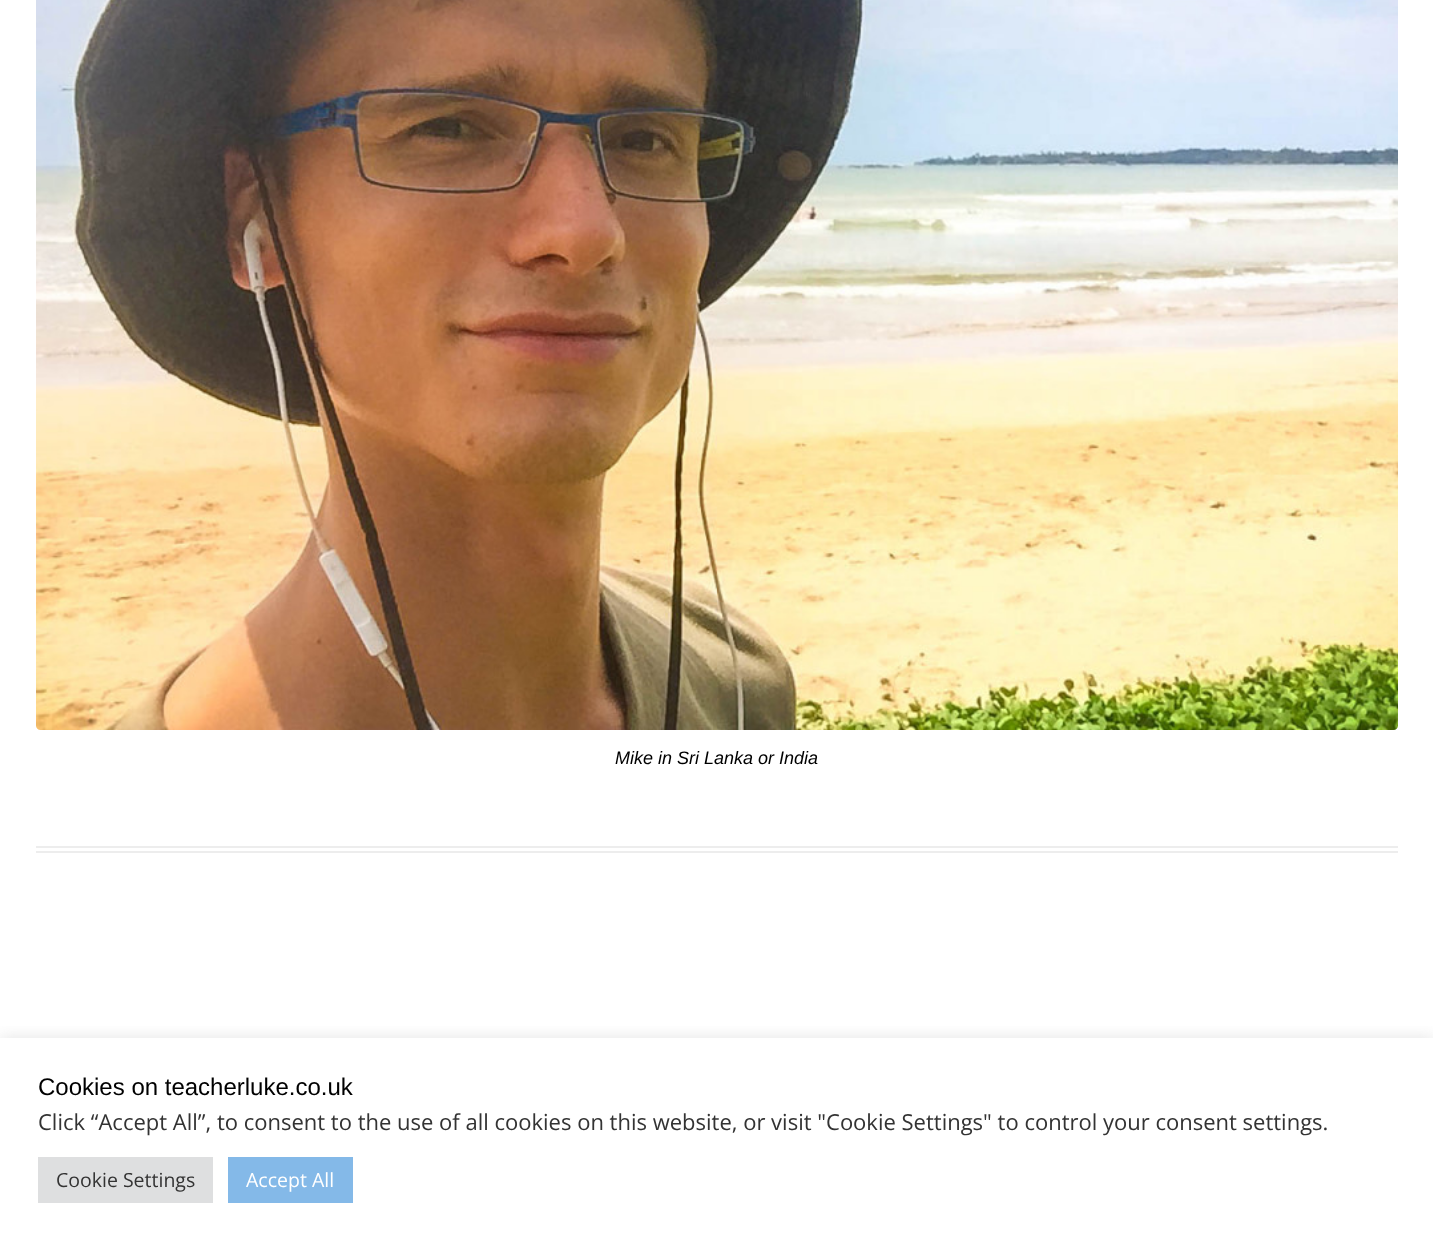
<?xml version="1.0" encoding="UTF-8"?>
<svg xmlns="http://www.w3.org/2000/svg" width="1433" height="1248">
    <defs>
        <clipPath id="clip1"><rect x="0" y="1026" width="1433" height="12"/></clipPath>
        <filter id="blur1" x="-50%" y="-200%" width="200%" height="500%"><feGaussianBlur stdDeviation="7.5"/></filter>
    </defs>
    <rect width="100%" height="100%" fill="#FFFFFF"/>
    <rect x="36" y="846" width="1362" height="2" fill="#EDEDED"/>
    <rect x="36" y="851" width="1362" height="2" fill="#EDEDED"/>
    <image x="36" y="0" width="1362" height="730" href="img_01.png"/>
    <text x="615" y="764" font-family="Liberation Sans" font-size="18" font-style="italic" fill="#000000">Mike in Sri Lanka or India</text>
    <g clip-path="url(#clip1)">
        <rect x="0" y="1037" width="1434" height="210" fill="#ACABAB" fill-opacity="0.3" filter="url(#blur1)"/>
    </g>
    <text x="38" y="1095" font-family="Liberation Sans" font-size="24" fill="#000000">Cookies on teacherluke.co.uk</text>
    <text x="38" y="1130" font-family="Open Sans" font-size="22" fill="#333333">Click “Accept All”, to consent to the use of all cookies on this website, or visit "Cookie Settings" to control your consent settings.</text>
    <rect x="38" y="1157" width="175" height="46" fill="#DEDFE0"/>
    <text x="56" y="1187" font-family="Open Sans" font-size="19.5" fill="#333333">Cookie Settings</text>
    <rect x="228" y="1157" width="125" height="46" fill="#84B9E8"/>
    <text x="246" y="1187" font-family="Open Sans" font-size="19.5" fill="#FFFFFF">Accept All</text>
</svg>
